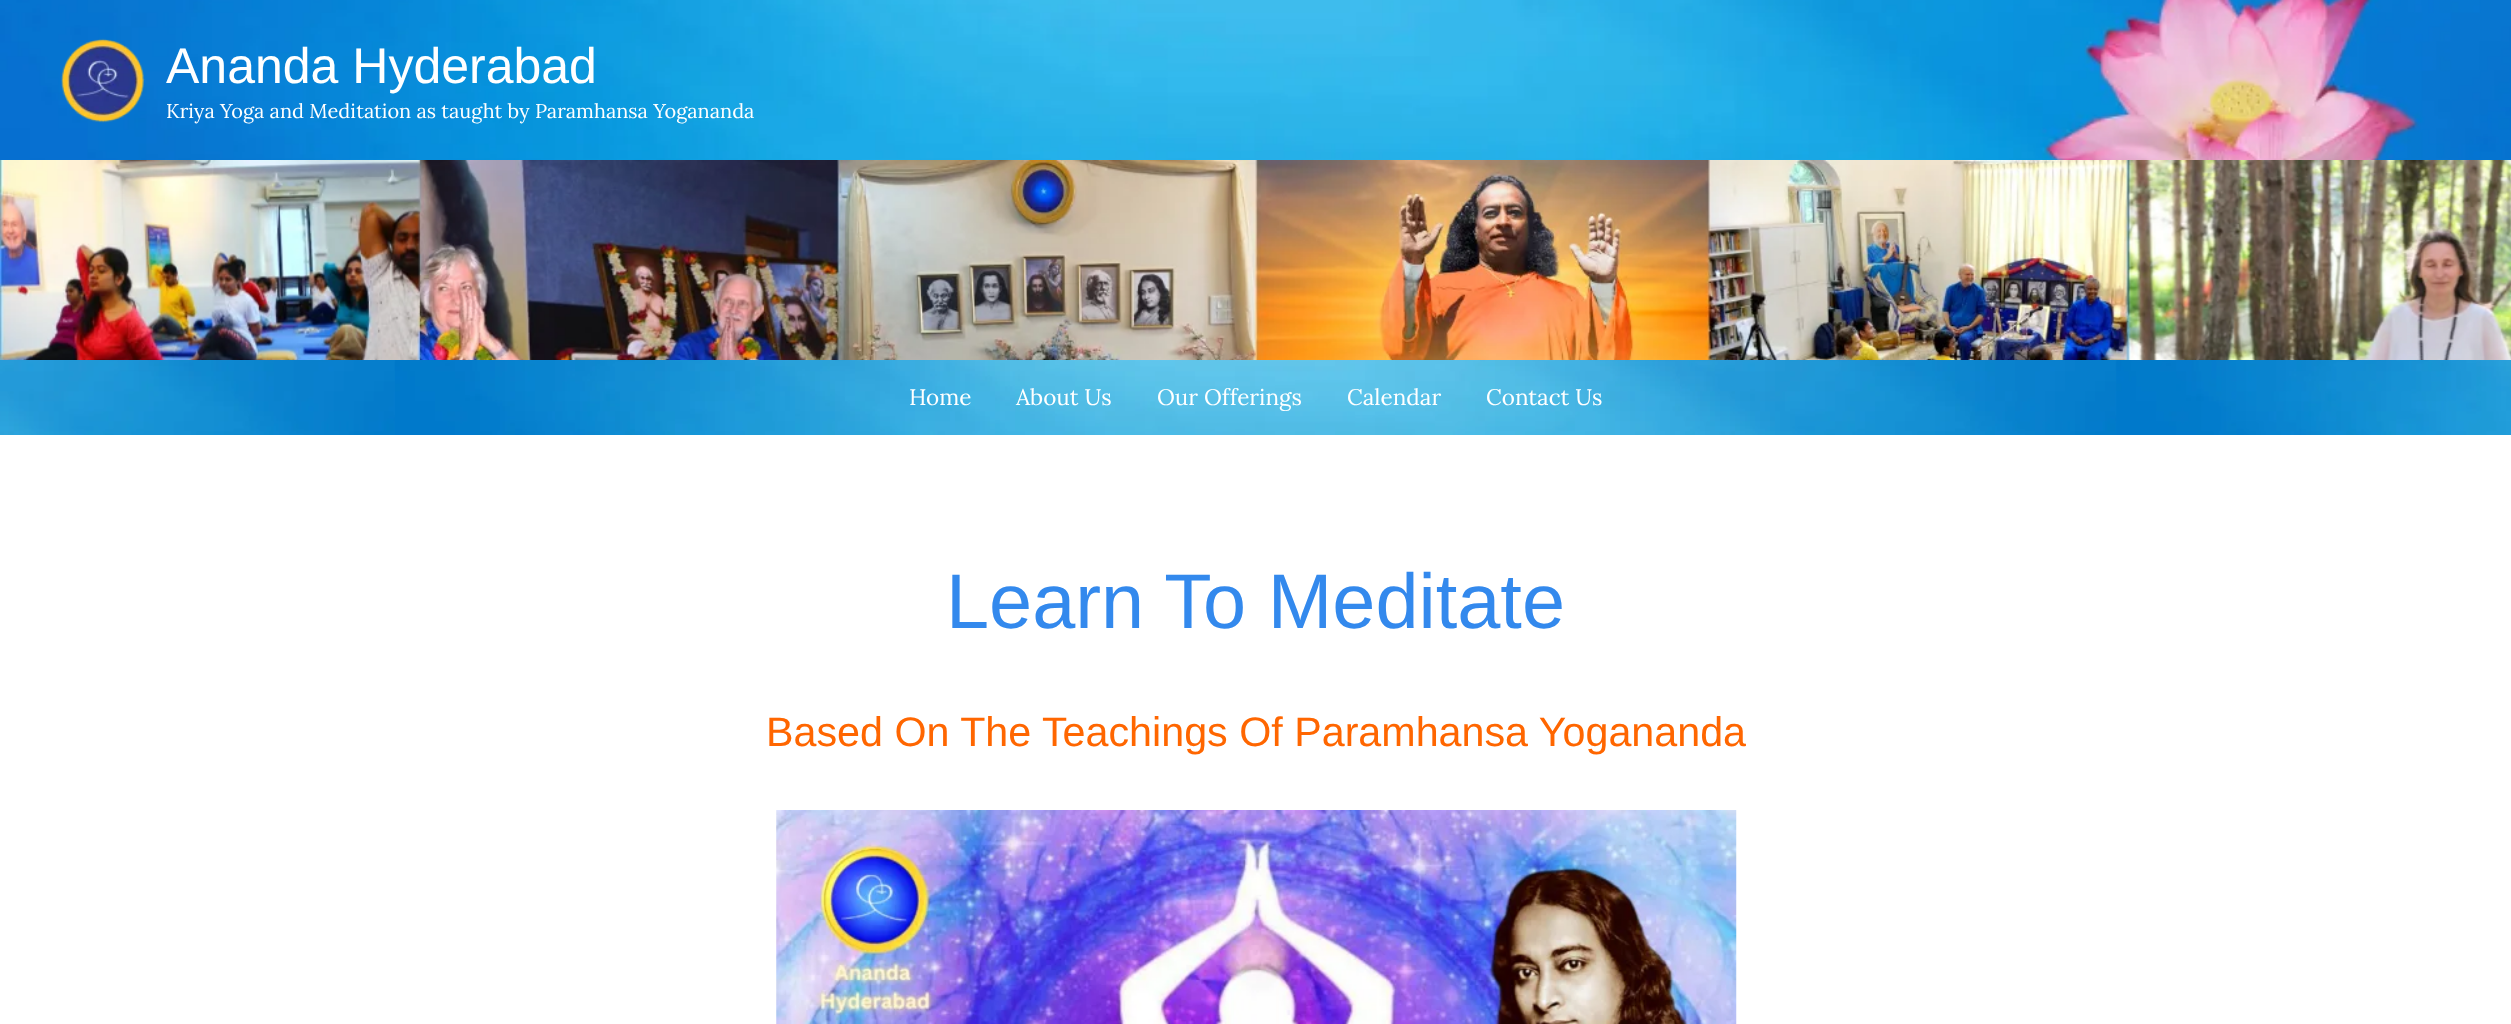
<?xml version="1.0" encoding="UTF-8"?>
<svg xmlns="http://www.w3.org/2000/svg" width="2511" height="1024">
    <rect width="100%" height="100%" fill="#FFFFFF"/>
    <image x="0" y="0" width="2511" height="160" href="img_01.png"/>
    <image x="61" y="38" width="84" height="85" href="img_02.png"/>
    <text x="166" y="83" font-family="Liberation Sans" font-size="50" fill="#FFFFFF">Ananda Hyderabad</text>
    <text x="166" y="118" font-family="Lora" font-size="20" fill="#FFFFFF">Kriya Yoga and Meditation as taught by Paramhansa Yogananda</text>
    <image x="0" y="160" width="2511" height="200" href="img_03.png"/>
    <image x="0" y="360" width="2511" height="75" href="img_04.png"/>
    <text x="909" y="405" font-family="Lora" font-size="22.5" fill="#FFFFFF">Home</text>
    <text x="1016" y="405" font-family="Lora" font-size="22.5" fill="#FFFFFF">About Us</text>
    <text x="1157" y="405" font-family="Lora" font-size="22.5" fill="#FFFFFF">Our Offerings</text>
    <text x="1347" y="405" font-family="Lora" font-size="22.5" fill="#FFFFFF">Calendar</text>
    <text x="1486" y="405" font-family="Lora" font-size="22.5" fill="#FFFFFF">Contact Us</text>
    <text x="946" y="628" font-family="Liberation Sans" font-size="77.5" fill="#3389ED">Learn To Meditate</text>
    <text x="766" y="746" font-family="Liberation Sans" font-size="41.25" fill="#FF6600">Based On The Teachings Of Paramhansa Yogananda</text>
    <image x="776" y="810" width="961" height="214" href="img_05.png"/>
</svg>
